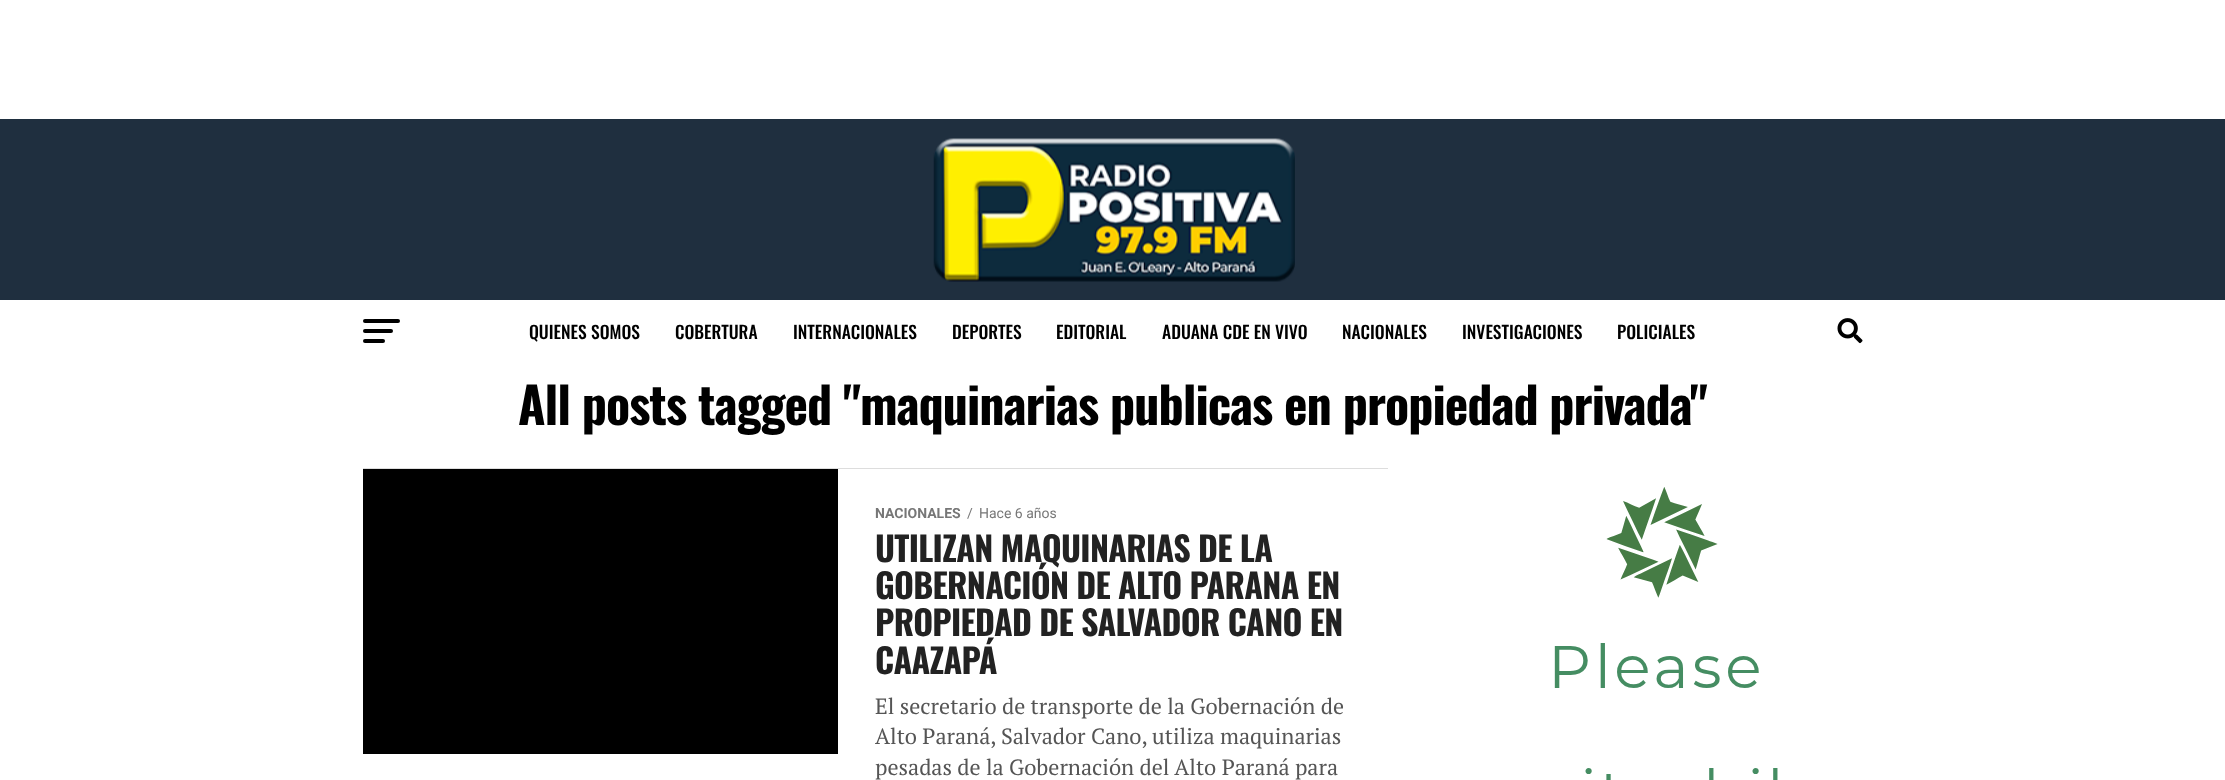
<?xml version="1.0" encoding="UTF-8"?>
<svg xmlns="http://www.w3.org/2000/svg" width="2225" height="780">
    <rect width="100%" height="100%" fill="#FFFFFF"/>
    <rect x="0" y="119" width="2225" height="181" fill="#1F2F3F"/>
    <image x="933" y="138" width="362" height="144" href="img_01.png"/>
    <rect x="363" y="319" width="37" height="4" rx="2" fill="#000000"/>
    <rect x="363" y="329" width="30" height="4" rx="2" fill="#000000"/>
    <rect x="363" y="339" width="22" height="4" rx="2" fill="#000000"/>
    <text x="529" y="339" font-family="Oswald" font-size="17.5" font-weight="500" fill="#000000">QUIENES SOMOS</text>
    <text x="675" y="339" font-family="Oswald" font-size="17.5" font-weight="500" fill="#000000">COBERTURA</text>
    <text x="793" y="339" font-family="Oswald" font-size="17.5" font-weight="500" fill="#000000">INTERNACIONALES</text>
    <text x="952" y="339" font-family="Oswald" font-size="17.5" font-weight="500" fill="#000000">DEPORTES</text>
    <text x="1056" y="339" font-family="Oswald" font-size="17.5" font-weight="500" fill="#000000">EDITORIAL</text>
    <text x="1162" y="339" font-family="Oswald" font-size="17.5" font-weight="500" fill="#000000">ADUANA CDE EN VIVO</text>
    <text x="1342" y="339" font-family="Oswald" font-size="17.5" font-weight="500" fill="#000000">NACIONALES</text>
    <text x="1462" y="339" font-family="Oswald" font-size="17.5" font-weight="500" fill="#000000">INVESTIGACIONES</text>
    <text x="1617" y="339" font-family="Oswald" font-size="17.5" font-weight="500" fill="#000000">POLICIALES</text>
    <image x="1837" y="318" width="26" height="26" href="img_02.png"/>
    <text x="518" y="425" font-family="Oswald" font-size="50" font-weight="700" letter-spacing="-1" fill="#000000">All posts tagged "maquinarias publicas en propiedad privada"</text>
    <rect x="363" y="468" width="1025" height="1" fill="#DDDDDD"/>
    <rect x="363" y="469" width="475" height="285" fill="#000000"/>
    <text x="875" y="518" font-family="Roboto" font-size="14" font-weight="700" fill="#777777">NACIONALES</text>
    <text x="967" y="518" font-family="Roboto" font-size="14" fill="#777777">/</text>
    <text x="979" y="518" font-family="Roboto" font-size="14" fill="#777777">Hace 6 años</text>
    <text font-family="Oswald" font-size="34" font-weight="700" letter-spacing="-0.7" fill="#222222">
        <tspan x="875" y="562">UTILIZAN MAQUINARIAS DE LA</tspan>
        <tspan x="875" y="599">GOBERNACIÓN DE ALTO PARANA EN</tspan>
        <tspan x="875" y="636">PROPIEDAD DE SALVADOR CANO EN</tspan>
        <tspan x="875" y="674">CAAZAPÁ</tspan>
    </text>
    <text font-family="PT Serif" font-size="22" fill="#555555">
        <tspan x="875" y="714">El secretario de transporte de la Gobernación de</tspan>
        <tspan x="875" y="744">Alto Paraná, Salvador Cano, utiliza maquinarias</tspan>
        <tspan x="875" y="775">pesadas de la Gobernación del Alto Paraná para</tspan>
    </text>
    <image x="1554" y="487" width="224" height="293" href="img_03.png"/>
</svg>
